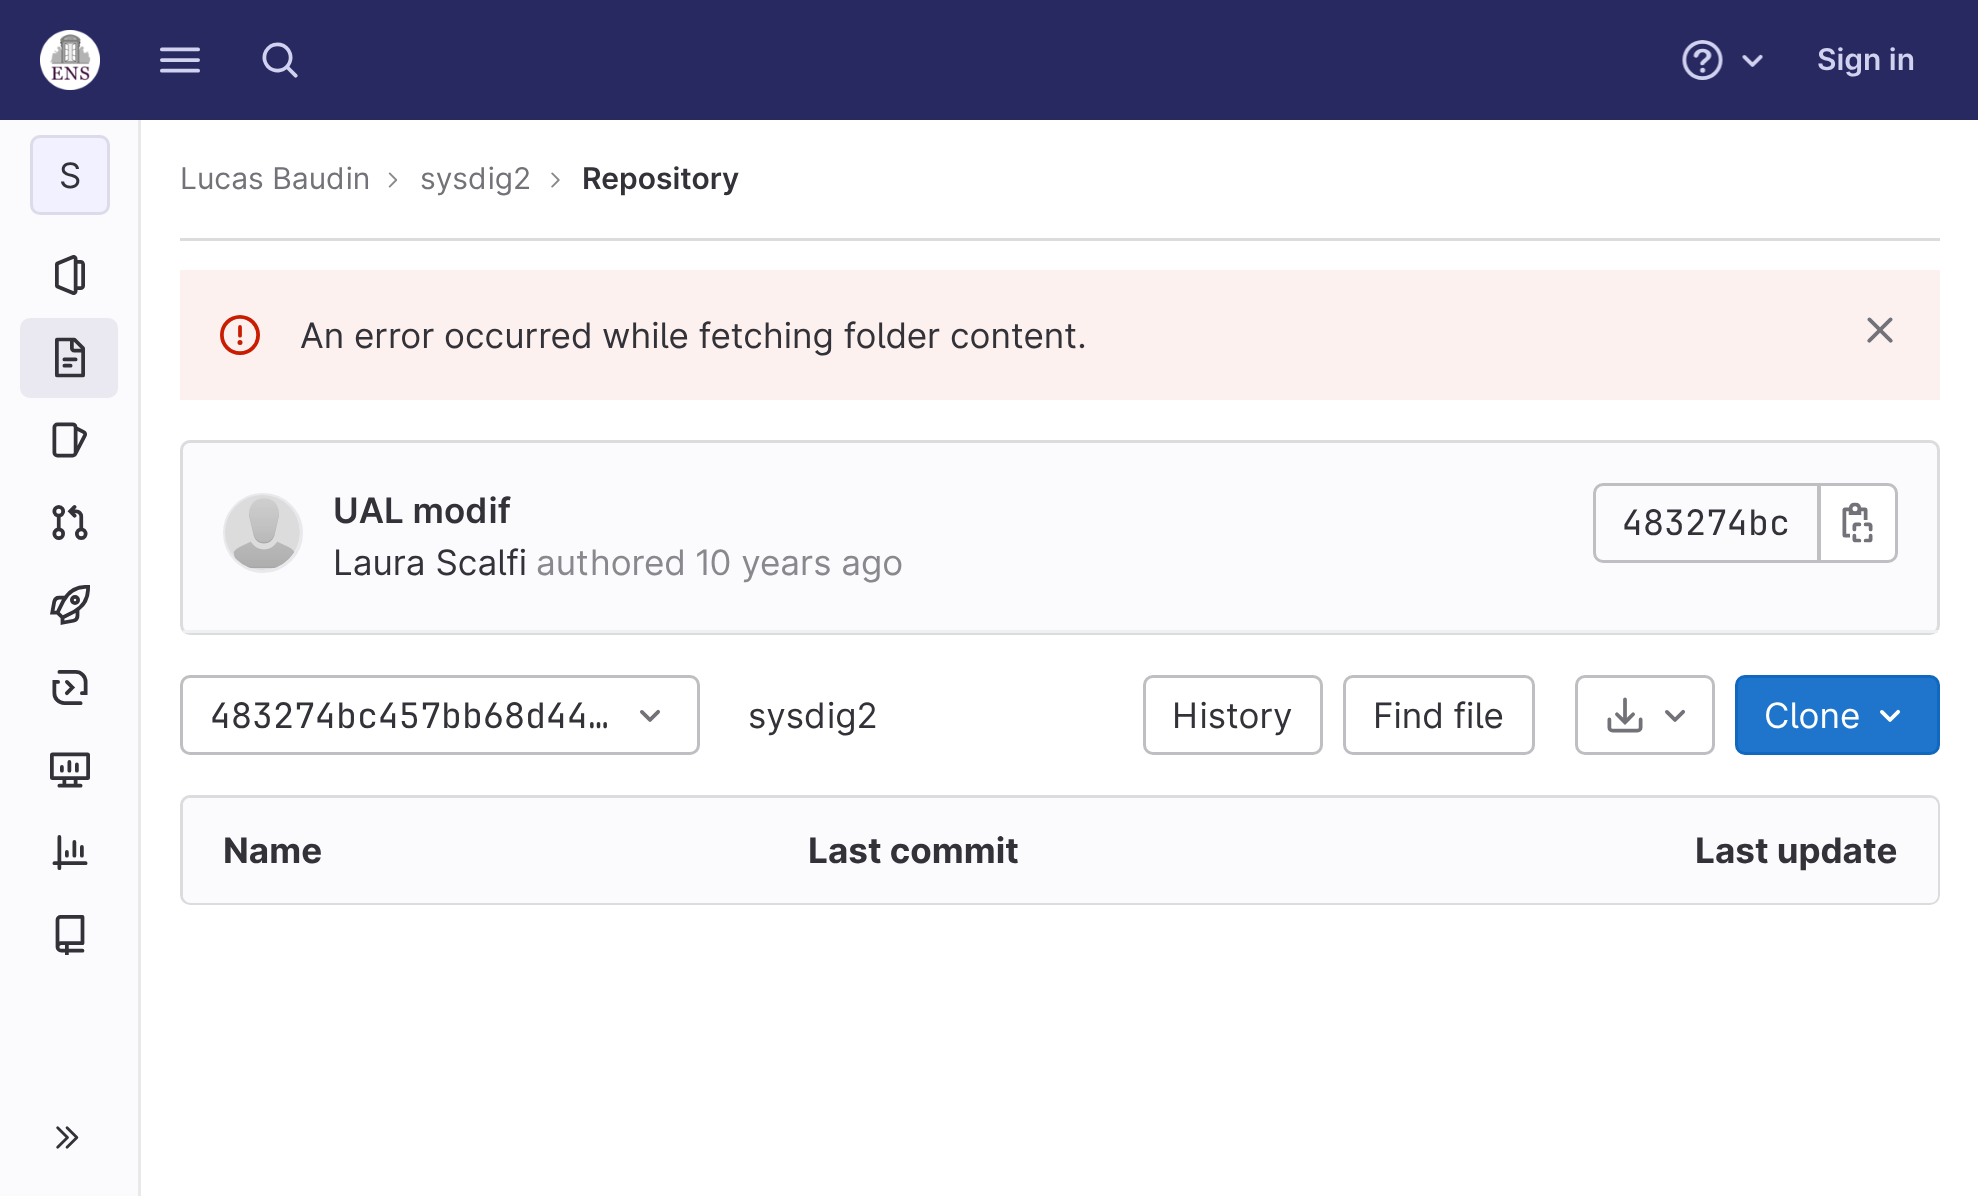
<?xml version="1.0" encoding="UTF-8"?>
<svg xmlns="http://www.w3.org/2000/svg" width="1978" height="1196">
    <rect width="100%" height="100%" fill="#FFFFFF"/>
    <rect x="0" y="0" width="1978" height="120" fill="#292961"/>
    <image x="40" y="30" width="60" height="60" href="img_01.png"/>
    <image x="160" y="47" width="40" height="26" href="img_02.png"/>
    <image x="262" y="42" width="36" height="36" href="img_03.png"/>
    <image x="1682" y="40" width="41" height="40" href="img_04.png"/>
    <image x="1742" y="54" width="21" height="13" href="img_05.png"/>
    <text x="1817" y="70" font-family="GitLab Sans" font-size="30" font-weight="600" fill="#D1D1F0">Sign in</text>
    <rect x="0" y="120" width="138" height="1076" fill="#FBFAFD"/>
    <rect x="138" y="120" width="3" height="1076" fill="#E9E9E9"/>
    <rect x="30" y="135" width="80" height="80" rx="10" fill="#F1F1FF"/>
    <rect x="31.5" y="136.5" width="77" height="77" rx="8.5" fill="none" stroke="#1F1E24" stroke-opacity="0.1" stroke-width="3"/>
    <text x="59" y="188" font-family="GitLab Sans" font-size="35" fill="#333238">S</text>
    <image x="55" y="255" width="30" height="40" href="img_06.png"/>
    <rect x="20" y="318" width="98" height="80" rx="10" fill="#EAE9F1"/>
    <image x="55" y="337" width="30" height="41" href="img_07.png"/>
    <image x="52" y="422" width="35" height="36" href="img_08.png"/>
    <image x="52" y="505" width="36" height="35" href="img_09.png"/>
    <image x="50" y="585" width="40" height="40" href="img_10.png"/>
    <image x="52" y="670" width="36" height="35" href="img_11.png"/>
    <image x="50" y="752" width="40" height="36" href="img_12.png"/>
    <image x="52" y="835" width="36" height="35" href="img_13.png"/>
    <image x="55" y="915" width="30" height="40" href="img_14.png"/>
    <image x="56" y="1126" width="23" height="23" href="img_15.png"/>
    <rect x="180" y="238" width="1760" height="3" fill="#DCDCDE"/>
    <text x="180" y="189" font-family="GitLab Sans" font-size="30" fill="#737278">Lucas Baudin</text>
    <image x="388" y="172" width="10" height="16" href="img_16.png"/>
    <text x="420" y="189" font-family="GitLab Sans" font-size="30" fill="#737278">sysdig2</text>
    <image x="551" y="172" width="9" height="16" href="img_17.png"/>
    <text x="582" y="189" font-family="GitLab Sans" font-size="30" font-weight="600" fill="#333238">Repository</text>
    <rect x="180" y="270" width="1760" height="130" fill="#FCF1EF"/>
    <image x="220" y="315" width="40" height="40" href="img_18.png"/>
    <text x="300" y="348" font-family="GitLab Sans" font-size="35" fill="#333238">An error occurred while fetching folder content.</text>
    <image x="1867" y="317" width="26" height="26" href="img_19.png"/>
    <rect x="181.5" y="441.5" width="1757" height="192" rx="8.5" fill="#FBFAFD" stroke="#DCDCDE" stroke-width="3"/>
    <rect x="183" y="630" width="1755" height="3" fill="#EEF0F2"/>
    <circle cx="263" cy="533" r="38.5" fill="none" stroke="#E9E8EC" stroke-width="3"/>
    <image x="225" y="495" width="75" height="75" href="img_20.png"/>
    <text x="333" y="523" font-family="GitLab Sans" font-size="35" font-weight="600" fill="#333238">UAL modif</text>
    <text x="333" y="575" font-family="GitLab Sans" font-size="35" fill="#333238">Laura Scalfi</text>
    <text x="536" y="575" font-family="GitLab Sans" font-size="35" fill="#89888D">authored 10 years ago</text>
    <path d="M 1603 484.5 H 1818.5 V 561.5 H 1603 C 1598.5 561.5 1594.5 557.5 1594.5 553 V 493 C 1594.5 488.5 1598.5 484.5 1603 484.5 Z" fill="none" stroke="#BFBFC3" stroke-width="3"/>
    <text x="1622" y="535" font-family="JetBrains Mono" font-size="35" fill="#333238">483274bc</text>
    <path d="M 1819.5 484.5 H 1888 C 1892.5 484.5 1896.5 488.5 1896.5 493 V 553 C 1896.5 557.5 1892.5 561.5 1888 561.5 H 1819.5 Z" fill="#FFFFFF" stroke="#BFBFC3" stroke-width="3"/>
    <image x="1842" y="502" width="31" height="41" href="img_21.png"/>
    <rect x="181.5" y="676.5" width="517" height="77" rx="8.5" fill="none" stroke="#BFBFC3" stroke-width="3"/>
    <text x="210" y="728" font-family="JetBrains Mono" font-size="35" fill="#333238">483274bc457bb68d44…</text>
    <image x="640" y="709" width="21" height="13" href="img_22.png"/>
    <text x="748" y="728" font-family="GitLab Sans" font-size="35" fill="#333238">sysdig2</text>
    <rect x="1144.5" y="676.5" width="177" height="77" rx="8.5" fill="none" stroke="#BFBFC3" stroke-width="3"/>
    <text x="1172" y="728" font-family="GitLab Sans" font-size="35" fill="#333238">History</text>
    <rect x="1344.5" y="676.5" width="189" height="77" rx="8.5" fill="none" stroke="#BFBFC3" stroke-width="3"/>
    <text x="1373" y="728" font-family="GitLab Sans" font-size="35" fill="#333238">Find file</text>
    <rect x="1576.5" y="676.5" width="137" height="77" rx="8.5" fill="none" stroke="#BFBFC3" stroke-width="3"/>
    <image x="1607" y="697" width="36" height="36" href="img_23.png"/>
    <image x="1664" y="709" width="22" height="13" href="img_24.png"/>
    <rect x="1736.5" y="676.5" width="202" height="77" rx="8.5" fill="#1F75CB" stroke="#1068BF" stroke-width="3"/>
    <text x="1764" y="728" font-family="GitLab Sans" font-size="35" fill="#FFFFFF">Clone</text>
    <image x="1879" y="709" width="22" height="13" href="img_25.png"/>
    <rect x="181.5" y="796.5" width="1757" height="107" rx="8.5" fill="none" stroke="#DCDCDE" stroke-width="3"/>
    <path d="M 191 798 H 768 V 903 H 191 C 186.5 903 183 899.5 183 895 V 806 C 183 801.5 186.5 798 191 798 Z" fill="#FBFAFD"/>
    <text x="223" y="863" font-family="GitLab Sans" font-size="35" font-weight="700" fill="#333238">Name</text>
    <rect x="768" y="798" width="585" height="105" fill="#FBFAFD"/>
    <text x="808" y="863" font-family="GitLab Sans" font-size="35" font-weight="700" fill="#333238">Last commit</text>
    <path d="M 1353 798 H 1930 C 1934.5 798 1938 801.5 1938 806 V 895 C 1938 899.5 1934.5 903 1930 903 H 1353 Z" fill="#FBFAFD"/>
    <text x="1695" y="863" font-family="GitLab Sans" font-size="35" font-weight="700" fill="#333238">Last update</text>
</svg>
